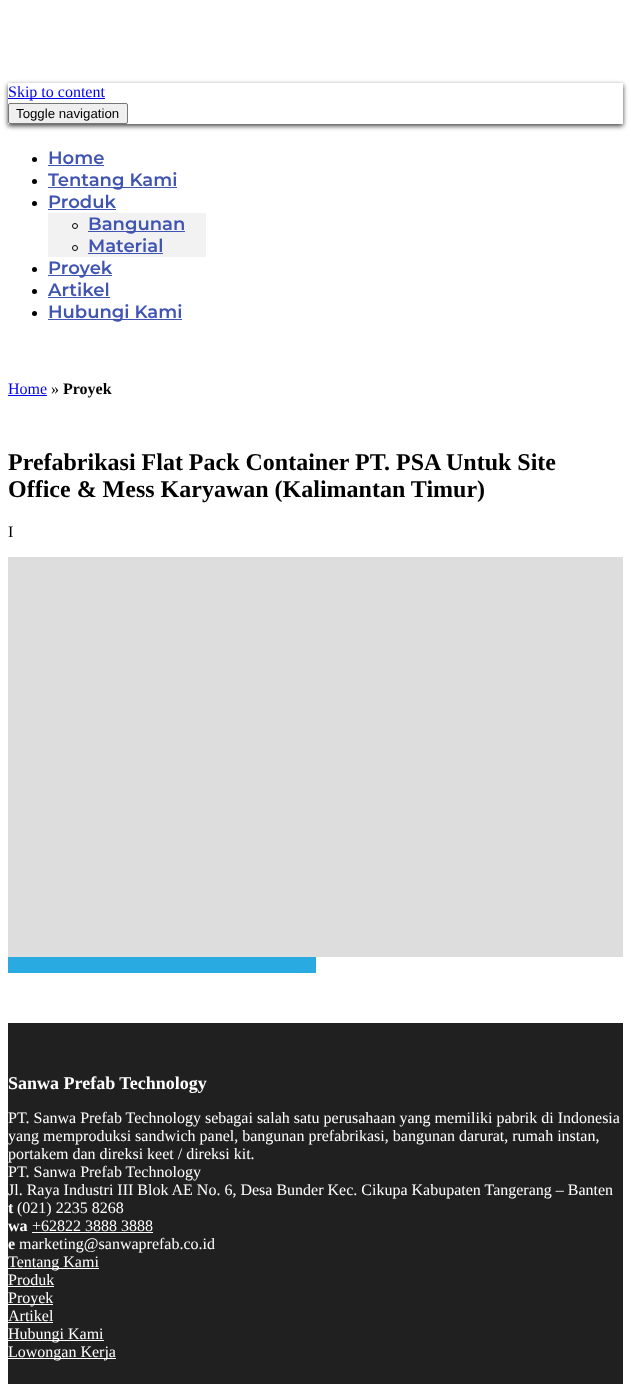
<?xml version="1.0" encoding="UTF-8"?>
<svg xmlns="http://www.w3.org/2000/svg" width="631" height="1384">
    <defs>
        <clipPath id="clip1"><path d="M 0 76 H 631 V 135 H 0 Z M 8 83 H 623 V 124 H 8 Z" clip-rule="evenodd"/></clipPath>
        <filter id="blur1" x="-50%" y="-200%" width="200%" height="500%"><feGaussianBlur stdDeviation="2.5"/></filter>
    </defs>
    <rect width="100%" height="100%" fill="#FFFFFF"/>
    <g clip-path="url(#clip1)">
        <rect x="8" y="85" width="615" height="41" fill="#000000" fill-opacity="0.75" filter="url(#blur1)"/>
    </g>
    <rect x="8" y="98" width="97" height="1" fill="#0000EE"/>
    <text x="8" y="97" font-family="Liberation Serif" font-size="16" fill="#0000EE">Skip to content</text>
    <rect x="8.5" y="103.5" width="119" height="20" rx="1.5" fill="#EFEFEF" stroke="#767676"/>
    <text x="16" y="118" font-family="Liberation Sans" font-size="13.25" fill="#000000">Toggle navigation</text>
    <circle cx="34.5" cy="159.5" r="2.5" fill="#000000"/>
    <text x="48" y="164" font-family="Montserrat" font-size="18" font-weight="600" fill="#4054B2">Home</text>
    <rect x="48" y="165" width="56" height="1" fill="#4054B2"/>
    <circle cx="34.5" cy="181.5" r="2.5" fill="#000000"/>
    <rect x="48" y="187" width="129" height="1" fill="#4054B2"/>
    <text x="48" y="186" font-family="Montserrat" font-size="18" font-weight="600" fill="#4054B2">Tentang Kami</text>
    <circle cx="34.5" cy="203.5" r="2.5" fill="#000000"/>
    <text x="48" y="208" font-family="Montserrat" font-size="18" font-weight="600" fill="#4054B2">Produk</text>
    <rect x="48" y="209" width="68" height="1" fill="#4054B2"/>
    <rect x="48" y="213" width="158" height="44" fill="#F2F2F2"/>
    <circle cx="75" cy="226" r="2.5" fill="none" stroke="#000000"/>
    <rect x="88" y="231" width="97" height="1" fill="#4054B2"/>
    <text x="88" y="230" font-family="Montserrat" font-size="18" font-weight="600" fill="#4054B2">Bangunan</text>
    <circle cx="75" cy="248" r="2.5" fill="none" stroke="#000000"/>
    <text x="88" y="252" font-family="Montserrat" font-size="18" font-weight="600" fill="#4054B2">Material</text>
    <rect x="88" y="253" width="75" height="1" fill="#4054B2"/>
    <circle cx="34.5" cy="269.5" r="2.5" fill="#000000"/>
    <rect x="48" y="275" width="64" height="1" fill="#4054B2"/>
    <text x="48" y="274" font-family="Montserrat" font-size="18" font-weight="600" fill="#4054B2">Proyek</text>
    <circle cx="34.5" cy="291.5" r="2.5" fill="#000000"/>
    <text x="48" y="296" font-family="Montserrat" font-size="18" font-weight="600" fill="#4054B2">Artikel</text>
    <rect x="48" y="297" width="62" height="1" fill="#4054B2"/>
    <circle cx="34.5" cy="313.5" r="2.5" fill="#000000"/>
    <rect x="48" y="319" width="134" height="1" fill="#4054B2"/>
    <text x="48" y="318" font-family="Montserrat" font-size="18" font-weight="600" fill="#4054B2">Hubungi Kami</text>
    <text x="8" y="394" font-family="Liberation Serif" font-size="16" fill="#0000EE">Home</text>
    <rect x="8" y="395" width="39" height="1" fill="#0000EE"/>
    <text x="51" y="394" font-family="Liberation Serif" font-size="16" fill="#000000">»</text>
    <text x="63" y="394" font-family="Liberation Serif" font-size="16" font-weight="700" fill="#000000">Proyek</text>
    <text font-family="Liberation Serif" font-size="24" font-weight="700" fill="#000000">
        <tspan x="8" y="470">Prefabrikasi Flat Pack Container PT. PSA Untuk Site</tspan>
        <tspan x="8" y="497">Office &amp; Mess Karyawan (Kalimantan Timur)</tspan>
    </text>
    <text x="8" y="537" font-family="Liberation Serif" font-size="16" fill="#000000">I</text>
    <rect x="8" y="557" width="615" height="400" fill="#DDDDDD"/>
    <rect x="8" y="957" width="308" height="16" fill="#29ABE2"/>
    <rect x="8" y="1023" width="615" height="361" fill="#202020"/>
    <text x="8" y="1089" font-family="Liberation Serif" font-size="18" font-weight="700" fill="#FFFFFF">Sanwa Prefab Technology</text>
    <text font-family="Liberation Serif" font-size="16" fill="#FFFFFF">
        <tspan x="8" y="1123">PT. Sanwa Prefab Technology sebagai salah satu perusahaan yang memiliki pabrik di Indonesia</tspan>
        <tspan x="8" y="1141">yang memproduksi sandwich panel, bangunan prefabrikasi, bangunan darurat, rumah instan,</tspan>
        <tspan x="8" y="1159">portakem dan direksi keet / direksi kit.</tspan>
        <tspan x="8" y="1177">PT. Sanwa Prefab Technology</tspan>
        <tspan x="8" y="1195">Jl. Raya Industri III Blok AE No. 6, Desa Bunder Kec. Cikupa Kabupaten Tangerang – Banten</tspan>
    </text>
    <text x="8" y="1213" font-family="Liberation Serif" font-size="16" font-weight="700" fill="#FFFFFF">t</text>
    <text x="17" y="1213" font-family="Liberation Serif" font-size="16" fill="#FFFFFF">(021) 2235 8268</text>
    <text x="8" y="1231" font-family="Liberation Serif" font-size="16" font-weight="700" fill="#FFFFFF">wa</text>
    <text x="32" y="1231" font-family="Liberation Serif" font-size="16" fill="#FFFFFF">+62822 3888 3888</text>
    <rect x="32" y="1232" width="121" height="1" fill="#FFFFFF"/>
    <text x="8" y="1249" font-family="Liberation Serif" font-size="16" font-weight="700" fill="#FFFFFF">e</text>
    <text x="19" y="1249" font-family="Liberation Serif" font-size="16" fill="#FFFFFF">marketing@sanwaprefab.co.id</text>
    <rect x="8" y="1268" width="91" height="1" fill="#FFFFFF"/>
    <text font-family="Liberation Serif" font-size="16" fill="#FFFFFF">
        <tspan x="8" y="1267">Tentang Kami</tspan>
        <tspan x="8" y="1285">Produk</tspan>
    </text>
    <rect x="8" y="1286" width="46" height="1" fill="#FFFFFF"/>
    <rect x="8" y="1304" width="45" height="1" fill="#FFFFFF"/>
    <text font-family="Liberation Serif" font-size="16" fill="#FFFFFF">
        <tspan x="8" y="1303">Proyek</tspan>
        <tspan x="8" y="1321">Artikel</tspan>
    </text>
    <rect x="8" y="1322" width="45" height="1" fill="#FFFFFF"/>
    <rect x="8" y="1340" width="96" height="1" fill="#FFFFFF"/>
    <text x="8" y="1339" font-family="Liberation Serif" font-size="16" fill="#FFFFFF">Hubungi Kami</text>
    <rect x="8" y="1358" width="108" height="1" fill="#FFFFFF"/>
    <text x="8" y="1357" font-family="Liberation Serif" font-size="16" fill="#FFFFFF">Lowongan Kerja</text>
</svg>
